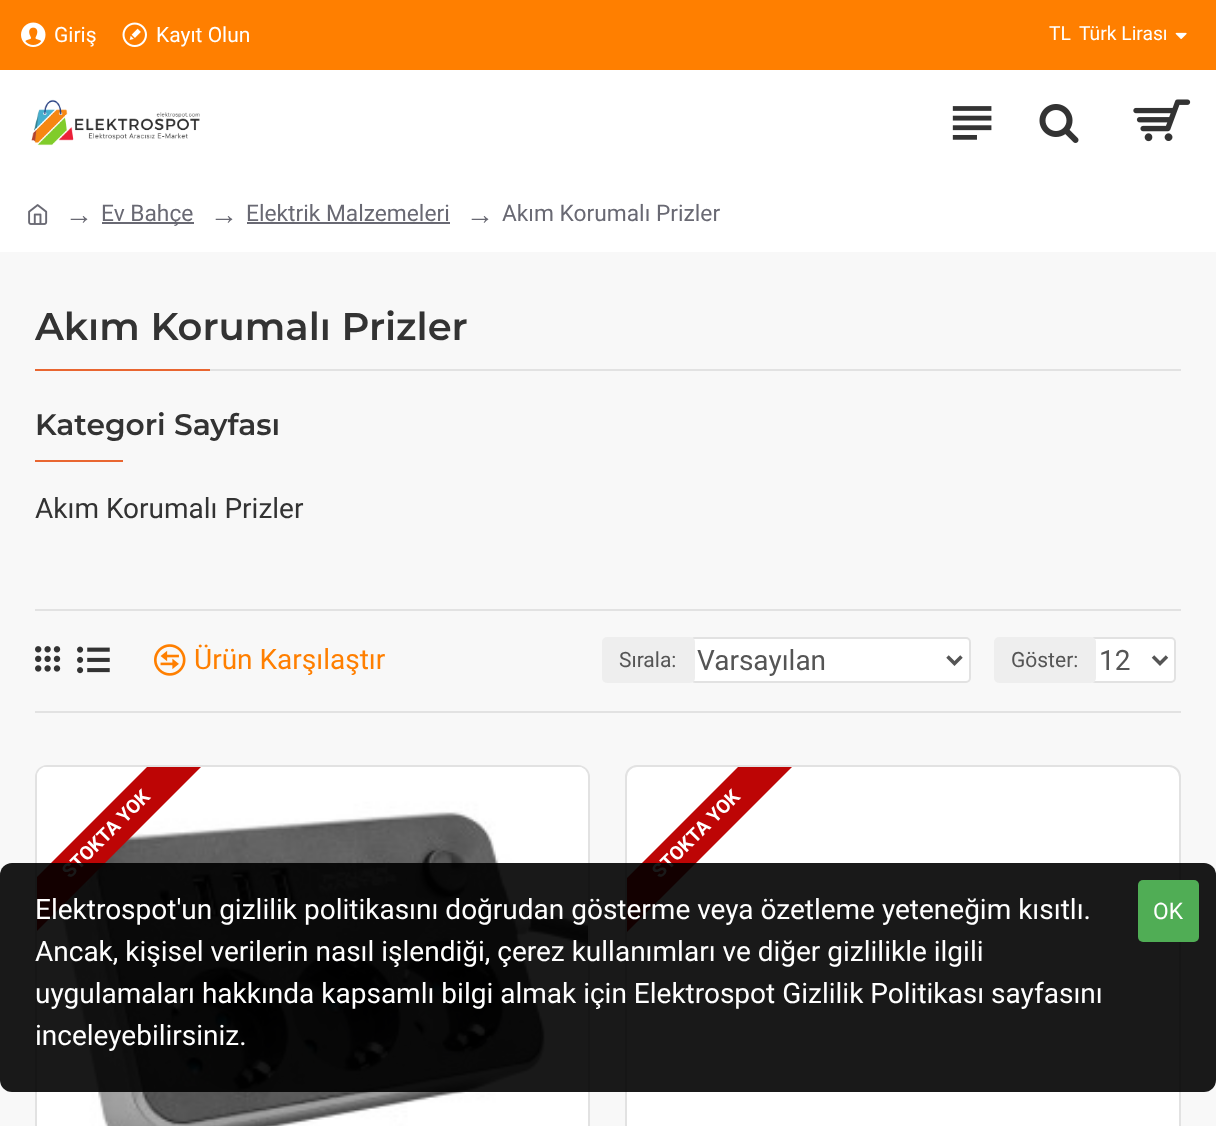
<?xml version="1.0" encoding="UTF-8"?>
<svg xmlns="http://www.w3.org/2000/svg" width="1216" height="1126">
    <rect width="100%" height="100%" fill="#F8F8F8"/>
    <rect x="0" y="0" width="1216" height="70" fill="#FF7F00"/>
    <image x="21" y="22" width="25" height="25" href="img_01.png"/>
    <text x="54" y="42" font-family="Roboto" font-size="21" fill="#FFFFFF">Giriş</text>
    <image x="122" y="22" width="25" height="25" href="img_02.png"/>
    <text x="156" y="42" font-family="Roboto" font-size="21" fill="#FFFFFF">Kayıt Olun</text>
    <text x="1049" y="40" font-family="Roboto" font-size="19.25" fill="#FFFFFF">TL</text>
    <text x="1079" y="40" font-family="Roboto" font-size="19.25" fill="#FFFFFF">Türk Lirası</text>
    <image x="1175" y="32" width="12" height="7" href="img_03.png"/>
    <rect x="0" y="70" width="1216" height="182" fill="#FFFFFF"/>
    <image x="31" y="99" width="169" height="47" href="img_04.png"/>
    <image x="952" y="106" width="40" height="34" href="img_05.png"/>
    <image x="1039" y="104" width="40" height="39" href="img_06.png"/>
    <image x="1133" y="99" width="58" height="43" href="img_07.png"/>
    <image x="28" y="204" width="20" height="21" href="img_08.png"/>
    <text x="65" y="224" font-family="Liberation Serif" font-size="28" fill="#696973">→</text>
    <rect x="102" y="222" width="92" height="2" fill="#696973"/>
    <text x="101" y="221" font-family="Roboto" font-size="22.75" fill="#696973">Ev Bahçe</text>
    <text x="210" y="224" font-family="Liberation Serif" font-size="28" fill="#696973">→</text>
    <text x="246" y="221" font-family="Roboto" font-size="22.75" fill="#696973">Elektrik Malzemeleri</text>
    <rect x="247" y="222" width="203" height="2" fill="#696973"/>
    <text x="466" y="224" font-family="Liberation Serif" font-size="28" fill="#696973">→</text>
    <text x="502" y="221" font-family="Roboto" font-size="22.75" fill="#696973">Akım Korumalı Prizler</text>
    <rect x="210" y="369" width="971" height="2" fill="#E2E2E2"/>
    <text x="35" y="340" font-family="Montserrat" font-size="38.5" font-weight="600" fill="#333333">Akım Korumalı Prizler</text>
    <rect x="35" y="369" width="175" height="2" fill="#E96631"/>
    <text x="35" y="435" font-family="Montserrat" font-size="29.75" font-weight="600" fill="#333333">Kategori Sayfası</text>
    <rect x="35" y="460" width="88" height="2" fill="#E96631"/>
    <text x="35" y="518" font-family="Roboto" font-size="28" fill="#333333">Akım Korumalı Prizler</text>
    <rect x="35" y="609" width="1146" height="2" fill="#E2E2E2"/>
    <rect x="35" y="711" width="1146" height="2" fill="#E2E2E2"/>
    <image x="35" y="646" width="26" height="26" href="img_09.png"/>
    <image x="77" y="646" width="33" height="28" href="img_10.png"/>
    <image x="154" y="644" width="32" height="32" href="img_11.png"/>
    <text x="194" y="669" font-family="Roboto" font-size="28" fill="#FF7F00">Ürün Karşılaştır</text>
    <rect x="691" y="638" width="279" height="44" rx="4" fill="#FFFFFF" stroke="#E2E2E2" stroke-width="2"/>
    <rect x="602" y="637" width="93" height="46" rx="5" fill="#EEEEEE"/>
    <text x="619" y="667" font-family="Roboto" font-size="21" fill="#555555">Sırala:</text>
    <path d="M 947.5 656.5 L 954.5 663.5 L 961.5 656.5" fill="none" stroke="#555555" stroke-width="3.5"/>
    <text x="697" y="670" font-family="Roboto" font-size="28" fill="#555555">Varsayılan</text>
    <rect x="1091" y="638" width="84" height="44" rx="4" fill="#FFFFFF" stroke="#E2E2E2" stroke-width="2"/>
    <rect x="994" y="637" width="102" height="46" rx="5" fill="#EEEEEE"/>
    <text x="1011" y="667" font-family="Roboto" font-size="21" fill="#555555">Göster:</text>
    <path d="M 1153 656.5 L 1160 663.5 L 1167 656.5" fill="none" stroke="#555555" stroke-width="3.5"/>
    <text x="1099" y="670" font-family="Roboto" font-size="28" fill="#555555">12</text>
    <rect x="36" y="766" width="553" height="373" rx="11" fill="none" stroke="#E2E2E2" stroke-width="2"/>
    <image x="37" y="767" width="551" height="359" href="img_12.png"/>
    <path d="M 201 767 L 37 931 V 877 L 147 767 Z" fill="#BD0505"/>
    <text x="70" y="879" transform="rotate(-45 70 879)" font-family="Roboto" font-size="19.25" font-weight="700" fill="#FFFFFF">STOKTA YOK</text>
    <rect x="626" y="766" width="554" height="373" rx="11" fill="#FFFFFF" stroke="#E2E2E2" stroke-width="2"/>
    <path d="M 792 767 L 627 932 V 878 L 738 767 Z" fill="#BD0505"/>
    <text x="660" y="879" transform="rotate(-45 660 879)" font-family="Roboto" font-size="19.25" font-weight="700" fill="#FFFFFF">STOKTA YOK</text>
    <rect x="0" y="863" width="1216" height="229" rx="12" fill="#000000" fill-opacity="0.9"/>
    <text font-family="Roboto" font-size="28" fill="#FFFFFF">
        <tspan x="35" y="919">Elektrospot'un gizlilik politikasını doğrudan gösterme veya özetleme yeteneğim kısıtlı.</tspan>
        <tspan x="35" y="961">Ancak, kişisel verilerin nasıl işlendiği, çerez kullanımları ve diğer gizlilikle ilgili</tspan>
        <tspan x="35" y="1003">uygulamaları hakkında kapsamlı bilgi almak için Elektrospot Gizlilik Politikası sayfasını</tspan>
        <tspan x="35" y="1045">inceleyebilirsiniz.</tspan>
    </text>
    <rect x="1138" y="880" width="61" height="62" rx="5" fill="#50AD55"/>
    <text x="1153" y="919" font-family="Roboto" font-size="22.75" fill="#FFFFFF">OK</text>
</svg>
